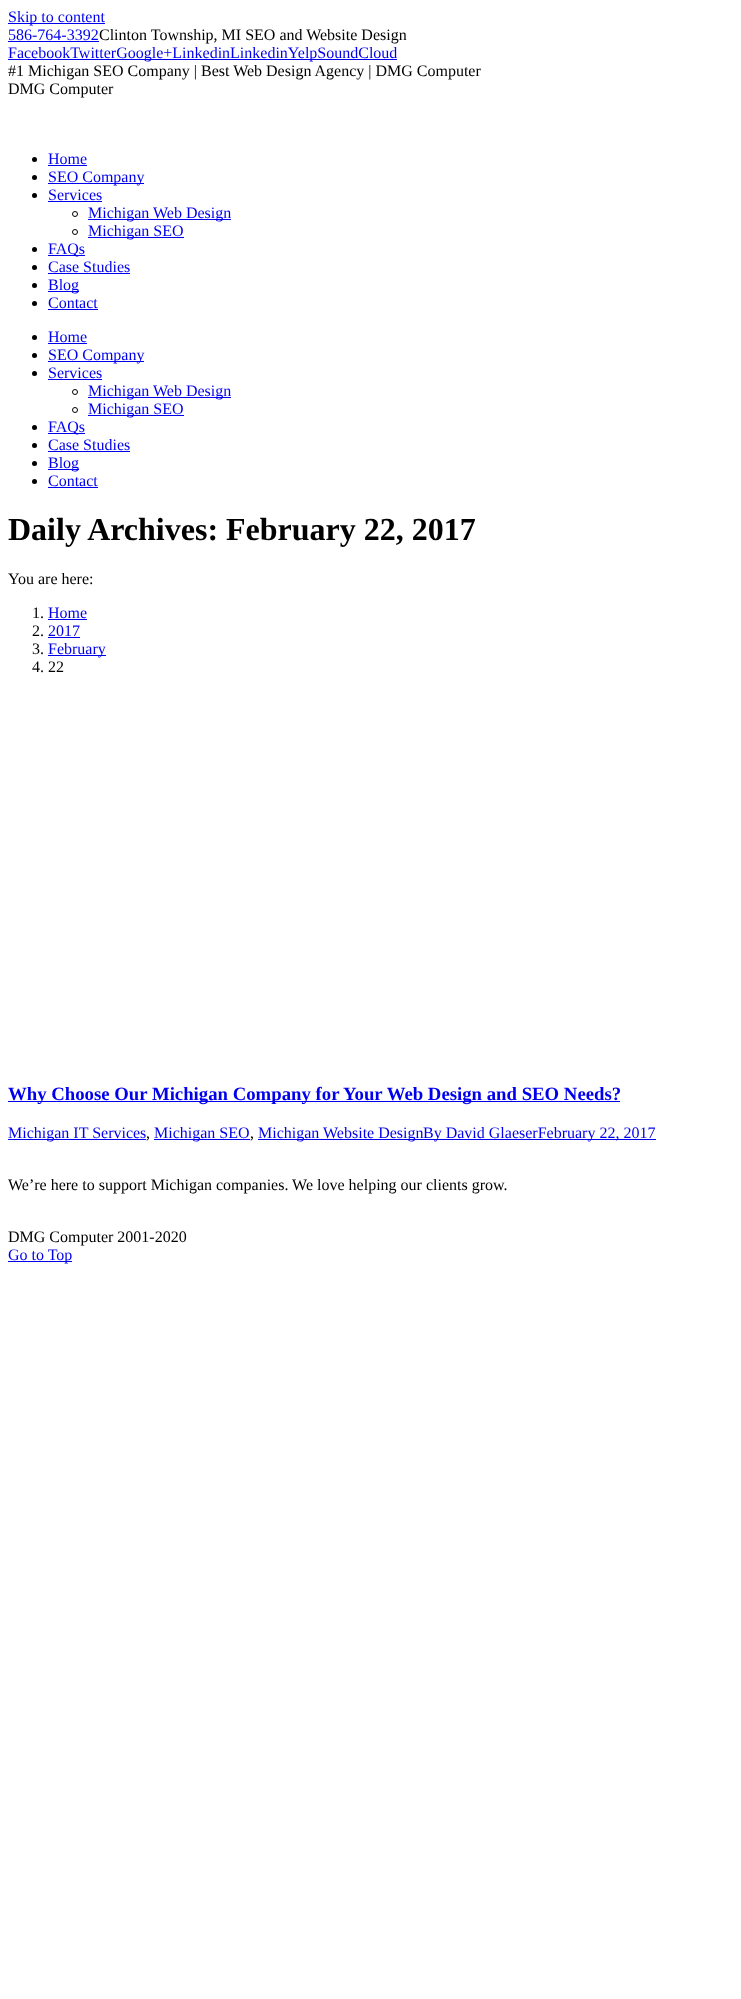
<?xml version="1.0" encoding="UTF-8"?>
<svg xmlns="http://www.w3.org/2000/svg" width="741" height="1999">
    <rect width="100%" height="100%" fill="#FFFFFF"/>
    <rect x="8" y="23" width="97" height="1" fill="#0000EE"/>
    <text font-family="Liberation Serif" font-size="16" fill="#0000EE">
        <tspan x="8" y="22">Skip to content</tspan>
        <tspan x="8" y="40">586-764-3392</tspan>
    </text>
    <rect x="8" y="41" width="91" height="1" fill="#0000EE"/>
    <text x="99" y="40" font-family="Liberation Serif" font-size="16" fill="#000000">Clinton Township, MI SEO and Website Design</text>
    <rect x="8" y="59" width="389" height="1" fill="#0000EE"/>
    <text x="8" y="58" font-family="Liberation Serif" font-size="16" fill="#0000EE">FacebookTwitterGoogle+LinkedinLinkedinYelpSoundCloud</text>
    <text font-family="Liberation Serif" font-size="16" fill="#000000">
        <tspan x="8" y="76">#1 Michigan SEO Company | Best Web Design Agency | DMG Computer</tspan>
        <tspan x="8" y="94">DMG Computer</tspan>
    </text>
    <circle cx="34.5" cy="159.5" r="2.5" fill="#000000"/>
    <text x="48" y="164" font-family="Liberation Serif" font-size="16" fill="#0000EE">Home</text>
    <rect x="48" y="165" width="39" height="1" fill="#0000EE"/>
    <circle cx="34.5" cy="177.5" r="2.5" fill="#000000"/>
    <rect x="48" y="183" width="96" height="1" fill="#0000EE"/>
    <text x="48" y="182" font-family="Liberation Serif" font-size="16" fill="#0000EE">SEO Company</text>
    <circle cx="34.5" cy="195.5" r="2.5" fill="#000000"/>
    <text x="48" y="200" font-family="Liberation Serif" font-size="16" fill="#0000EE">Services</text>
    <rect x="48" y="201" width="54" height="1" fill="#0000EE"/>
    <circle cx="75" cy="214" r="2.5" fill="none" stroke="#000000"/>
    <rect x="88" y="219" width="143" height="1" fill="#0000EE"/>
    <text x="88" y="218" font-family="Liberation Serif" font-size="16" fill="#0000EE">Michigan Web Design</text>
    <circle cx="75" cy="232" r="2.5" fill="none" stroke="#000000"/>
    <rect x="88" y="237" width="96" height="1" fill="#0000EE"/>
    <text x="88" y="236" font-family="Liberation Serif" font-size="16" fill="#0000EE">Michigan SEO</text>
    <circle cx="34.5" cy="249.5" r="2.5" fill="#000000"/>
    <rect x="48" y="255" width="37" height="1" fill="#0000EE"/>
    <text x="48" y="254" font-family="Liberation Serif" font-size="16" fill="#0000EE">FAQs</text>
    <circle cx="34.5" cy="267.5" r="2.5" fill="#000000"/>
    <text x="48" y="272" font-family="Liberation Serif" font-size="16" fill="#0000EE">Case Studies</text>
    <rect x="48" y="273" width="82" height="1" fill="#0000EE"/>
    <circle cx="34.5" cy="285.5" r="2.5" fill="#000000"/>
    <rect x="48" y="291" width="31" height="1" fill="#0000EE"/>
    <text x="48" y="290" font-family="Liberation Serif" font-size="16" fill="#0000EE">Blog</text>
    <circle cx="34.5" cy="303.5" r="2.5" fill="#000000"/>
    <text x="48" y="308" font-family="Liberation Serif" font-size="16" fill="#0000EE">Contact</text>
    <rect x="48" y="309" width="50" height="1" fill="#0000EE"/>
    <circle cx="34.5" cy="337.5" r="2.5" fill="#000000"/>
    <text x="48" y="342" font-family="Liberation Serif" font-size="16" fill="#0000EE">Home</text>
    <rect x="48" y="343" width="39" height="1" fill="#0000EE"/>
    <circle cx="34.5" cy="355.5" r="2.5" fill="#000000"/>
    <rect x="48" y="361" width="96" height="1" fill="#0000EE"/>
    <text x="48" y="360" font-family="Liberation Serif" font-size="16" fill="#0000EE">SEO Company</text>
    <circle cx="34.5" cy="373.5" r="2.5" fill="#000000"/>
    <text x="48" y="378" font-family="Liberation Serif" font-size="16" fill="#0000EE">Services</text>
    <rect x="48" y="379" width="54" height="1" fill="#0000EE"/>
    <circle cx="75" cy="392" r="2.5" fill="none" stroke="#000000"/>
    <rect x="88" y="397" width="143" height="1" fill="#0000EE"/>
    <text x="88" y="396" font-family="Liberation Serif" font-size="16" fill="#0000EE">Michigan Web Design</text>
    <circle cx="75" cy="410" r="2.5" fill="none" stroke="#000000"/>
    <rect x="88" y="415" width="96" height="1" fill="#0000EE"/>
    <text x="88" y="414" font-family="Liberation Serif" font-size="16" fill="#0000EE">Michigan SEO</text>
    <circle cx="34.5" cy="427.5" r="2.5" fill="#000000"/>
    <rect x="48" y="433" width="37" height="1" fill="#0000EE"/>
    <text x="48" y="432" font-family="Liberation Serif" font-size="16" fill="#0000EE">FAQs</text>
    <circle cx="34.5" cy="445.5" r="2.5" fill="#000000"/>
    <text x="48" y="450" font-family="Liberation Serif" font-size="16" fill="#0000EE">Case Studies</text>
    <rect x="48" y="451" width="82" height="1" fill="#0000EE"/>
    <circle cx="34.5" cy="463.5" r="2.5" fill="#000000"/>
    <rect x="48" y="469" width="31" height="1" fill="#0000EE"/>
    <text x="48" y="468" font-family="Liberation Serif" font-size="16" fill="#0000EE">Blog</text>
    <circle cx="34.5" cy="481.5" r="2.5" fill="#000000"/>
    <text x="48" y="486" font-family="Liberation Serif" font-size="16" fill="#0000EE">Contact</text>
    <rect x="48" y="487" width="50" height="1" fill="#0000EE"/>
    <text x="8" y="540" font-family="Liberation Serif" font-size="32" font-weight="700" fill="#000000">Daily Archives: February 22, 2017</text>
    <text x="8" y="584" font-family="Liberation Serif" font-size="16" fill="#000000">You are here:</text>
    <text x="32" y="618" font-family="Liberation Serif" font-size="16" fill="#000000">1.</text>
    <text x="48" y="618" font-family="Liberation Serif" font-size="16" fill="#0000EE">Home</text>
    <rect x="48" y="619" width="39" height="1" fill="#0000EE"/>
    <text x="32" y="636" font-family="Liberation Serif" font-size="16" fill="#000000">2.</text>
    <text x="48" y="636" font-family="Liberation Serif" font-size="16" fill="#0000EE">2017</text>
    <rect x="48" y="637" width="32" height="1" fill="#0000EE"/>
    <text x="32" y="654" font-family="Liberation Serif" font-size="16" fill="#000000">3.</text>
    <rect x="48" y="655" width="58" height="1" fill="#0000EE"/>
    <text x="48" y="654" font-family="Liberation Serif" font-size="16" fill="#0000EE">February</text>
    <text x="32" y="672" font-family="Liberation Serif" font-size="16" fill="#000000">4. 22</text>
    <rect x="8" y="1101" width="612" height="1" fill="#0000EE"/>
    <text x="8" y="1100" font-family="Liberation Serif" font-size="18.75" font-weight="700" fill="#0000EE">Why Choose Our Michigan Company for Your Web Design and SEO Needs?</text>
    <rect x="8" y="1139" width="138" height="1" fill="#0000EE"/>
    <text x="8" y="1138" font-family="Liberation Serif" font-size="16" fill="#0000EE">Michigan IT Services</text>
    <text x="146" y="1138" font-family="Liberation Serif" font-size="16" fill="#000000">,</text>
    <rect x="154" y="1139" width="96" height="1" fill="#0000EE"/>
    <text x="154" y="1138" font-family="Liberation Serif" font-size="16" fill="#0000EE">Michigan SEO</text>
    <text x="250" y="1138" font-family="Liberation Serif" font-size="16" fill="#000000">,</text>
    <rect x="258" y="1139" width="165" height="1" fill="#0000EE"/>
    <text x="258" y="1138" font-family="Liberation Serif" font-size="16" fill="#0000EE">Michigan Website Design</text>
    <rect x="423" y="1139" width="233" height="1" fill="#0000EE"/>
    <text x="423" y="1138" font-family="Liberation Serif" font-size="16" fill="#0000EE">By David GlaeserFebruary 22, 2017</text>
    <text x="8" y="1190" font-family="Liberation Serif" font-size="16" fill="#000000">We’re here to support Michigan companies. We love helping our clients grow.</text>
    <text x="8" y="1242" font-family="Liberation Serif" font-size="16" fill="#000000">DMG Computer 2001-2020</text>
    <rect x="8" y="1261" width="64" height="1" fill="#0000EE"/>
    <text x="8" y="1260" font-family="Liberation Serif" font-size="16" fill="#0000EE">Go to Top</text>
</svg>
